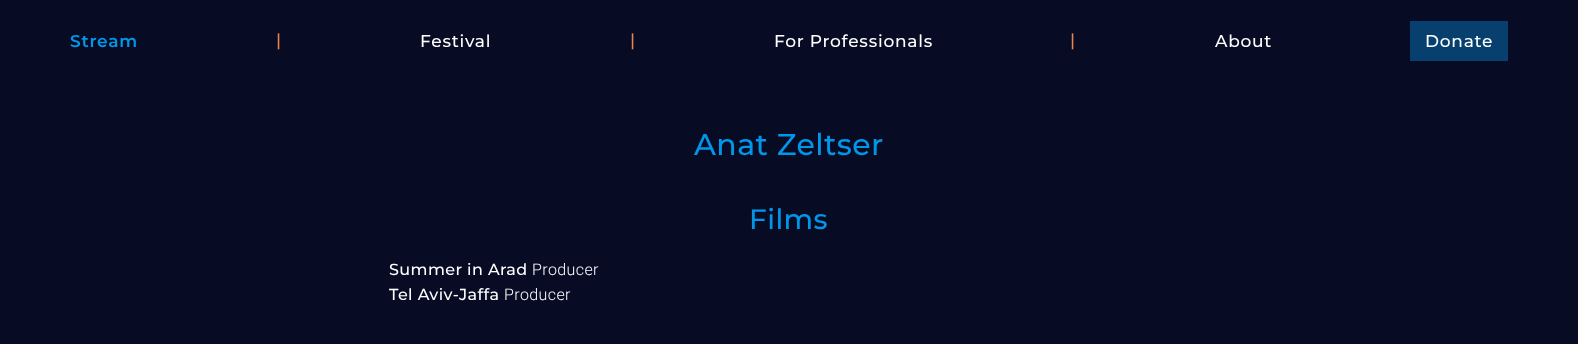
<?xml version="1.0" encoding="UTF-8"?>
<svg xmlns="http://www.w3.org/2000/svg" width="1578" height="344">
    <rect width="100%" height="100%" fill="#070C24"/>
    <text x="70" y="47" font-family="Montserrat" font-size="17" font-weight="600" letter-spacing="0.75" fill="#0097EA">Stream</text>
    <text x="276" y="46" font-family="Montserrat" font-size="17" font-weight="500" letter-spacing="0.75" fill="#EC834B">|</text>
    <text x="420" y="47" font-family="Montserrat" font-size="17" font-weight="500" letter-spacing="0.75" fill="#FFFFFF">Festival</text>
    <text x="630" y="46" font-family="Montserrat" font-size="17" font-weight="500" letter-spacing="0.75" fill="#EC834B">|</text>
    <text x="774" y="47" font-family="Montserrat" font-size="17" font-weight="500" letter-spacing="0.75" fill="#FFFFFF">For Professionals</text>
    <text x="1070" y="46" font-family="Montserrat" font-size="17" font-weight="500" letter-spacing="0.75" fill="#EC834B">|</text>
    <text x="1215" y="47" font-family="Montserrat" font-size="17" font-weight="500" letter-spacing="0.75" fill="#FFFFFF">About</text>
    <rect x="1410" y="21" width="98" height="40" fill="#07406F"/>
    <text x="1425" y="47" font-family="Montserrat" font-size="17" font-weight="500" letter-spacing="0.75" fill="#FFFFFF">Donate</text>
    <text x="694" y="155" font-family="Montserrat" font-size="30" font-weight="500" letter-spacing="0.4" fill="#0097EA">Anat Zeltser</text>
    <text x="749" y="229" font-family="Montserrat" font-size="28" font-weight="500" letter-spacing="0.4" fill="#0097EA">Films</text>
    <text x="389" y="275" font-family="Montserrat" font-size="16" font-weight="500" letter-spacing="0.4" fill="#FFFFFF">Summer in Arad</text>
    <text x="532" y="275" font-family="Roboto" font-size="16" font-weight="300" letter-spacing="0.4" fill="#FFFFFF">Producer</text>
    <text x="389" y="300" font-family="Montserrat" font-size="16" font-weight="500" letter-spacing="0.4" fill="#FFFFFF">Tel Aviv-Jaffa</text>
    <text x="504" y="300" font-family="Roboto" font-size="16" font-weight="300" letter-spacing="0.4" fill="#FFFFFF">Producer</text>
</svg>
